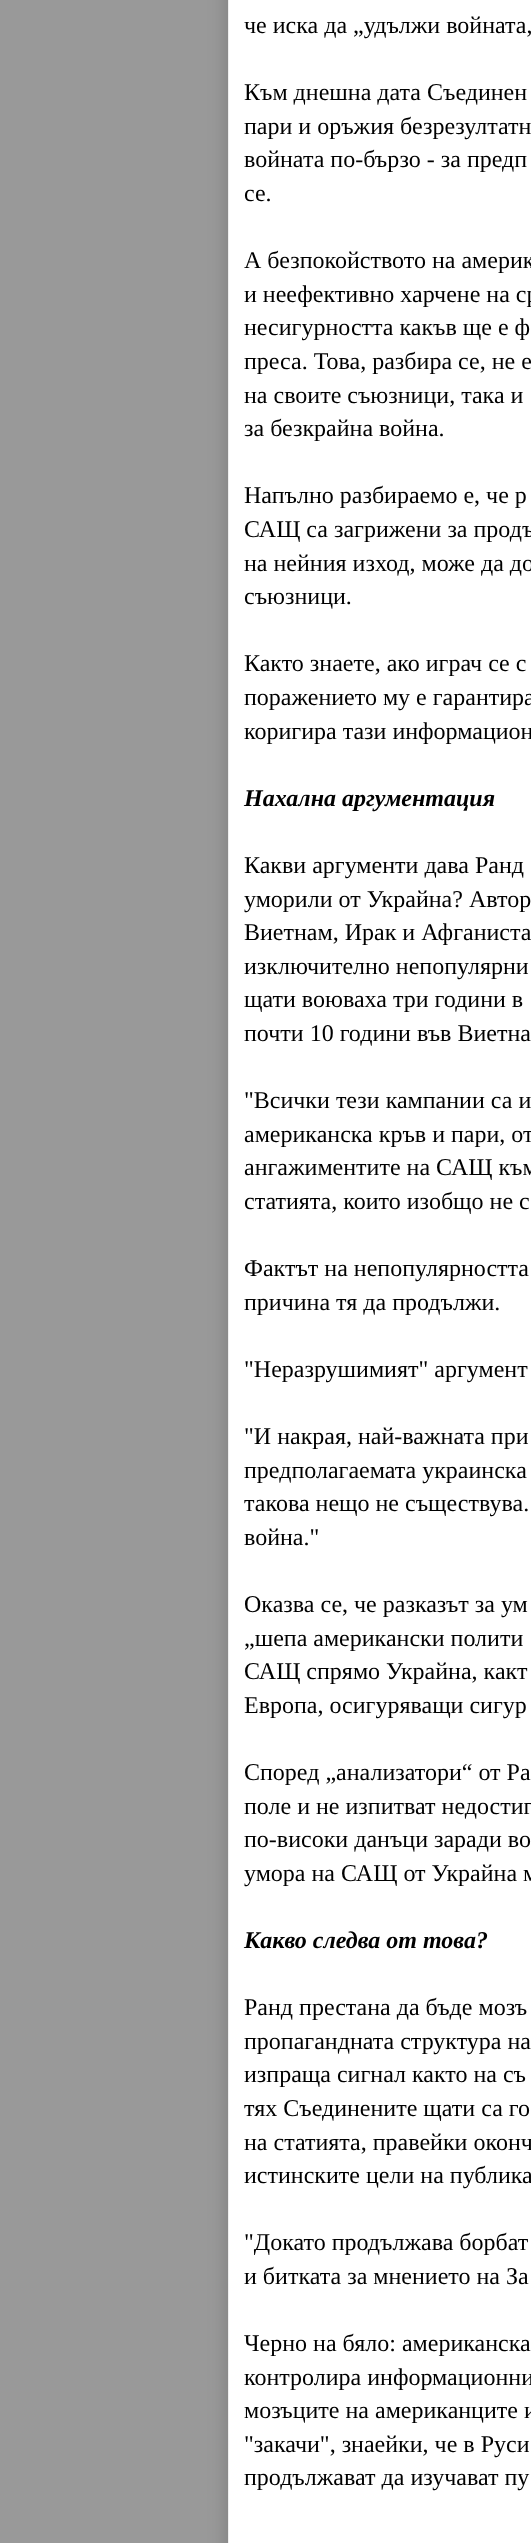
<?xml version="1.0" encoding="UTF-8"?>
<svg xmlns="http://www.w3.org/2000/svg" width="531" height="2543">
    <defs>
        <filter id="blur1" x="-50%" y="-200%" width="200%" height="500%"><feGaussianBlur stdDeviation="10"/></filter>
    </defs>
    <rect width="100%" height="100%" fill="#999999"/>
    <rect x="228" y="-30" width="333" height="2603" fill="#000000" fill-opacity="0.2" filter="url(#blur1)"/>
    <rect x="228.5" y="-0.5" width="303" height="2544" fill="#FFFFFF" stroke="#EEEEEE"/>
    <text x="244" y="33" font-family="Liberation Serif" font-size="24" fill="#000000">че иска да „удължи войната,</text>
    <text font-family="Liberation Serif" font-size="24" fill="#000000">
        <tspan x="244" y="100">Към днешна дата Съединен</tspan>
        <tspan x="244" y="134">пари и оръжия безрезултатн</tspan>
        <tspan x="244" y="167">войната по-бързо - за предп</tspan>
        <tspan x="244" y="201">се.</tspan>
    </text>
    <text font-family="Liberation Serif" font-size="24" fill="#000000">
        <tspan x="244" y="268">А безпокойството на америк</tspan>
        <tspan x="244" y="302">и неефективно харчене на ср</tspan>
        <tspan x="244" y="335">несигурността какъв ще е ф</tspan>
        <tspan x="244" y="369">преса. Това, разбира се, не е</tspan>
        <tspan x="244" y="403">на своите съюзници, така и</tspan>
        <tspan x="244" y="436">за безкрайна война.</tspan>
    </text>
    <text font-family="Liberation Serif" font-size="24" fill="#000000">
        <tspan x="244" y="503">Напълно разбираемо е, че р</tspan>
        <tspan x="244" y="537">САЩ са загрижени за продъ</tspan>
        <tspan x="244" y="571">на нейния изход, може да до</tspan>
        <tspan x="244" y="604">съюзници.</tspan>
    </text>
    <text font-family="Liberation Serif" font-size="24" fill="#000000">
        <tspan x="244" y="671">Както знаете, ако играч се с</tspan>
        <tspan x="244" y="705">поражението му е гарантира</tspan>
        <tspan x="244" y="739">коригира тази информацион</tspan>
    </text>
    <text x="244" y="806" font-family="Liberation Serif" font-size="24" font-weight="700" font-style="italic" fill="#000000">Нахална аргументация</text>
    <text font-family="Liberation Serif" font-size="24" fill="#000000">
        <tspan x="244" y="873">Какви аргументи дава Ранд</tspan>
        <tspan x="244" y="907">уморили от Украйна? Автор</tspan>
        <tspan x="244" y="940">Виетнам, Ирак и Афганиста</tspan>
        <tspan x="244" y="974">изключително непопулярни</tspan>
        <tspan x="244" y="1007">щати воюваха три години в</tspan>
        <tspan x="244" y="1041">почти 10 години във Виетна</tspan>
    </text>
    <text font-family="Liberation Serif" font-size="24" fill="#000000">
        <tspan x="244" y="1108">"Всички тези кампании са и</tspan>
        <tspan x="244" y="1142">американска кръв и пари, от</tspan>
        <tspan x="244" y="1175">ангажиментите на САЩ към</tspan>
        <tspan x="244" y="1209">статията, които изобщо не с</tspan>
    </text>
    <text font-family="Liberation Serif" font-size="24" fill="#000000">
        <tspan x="244" y="1276">Фактът на непопулярността</tspan>
        <tspan x="244" y="1310">причина тя да продължи.</tspan>
    </text>
    <text x="244" y="1377" font-family="Liberation Serif" font-size="24" fill="#000000">"Неразрушимият" аргумент</text>
    <text font-family="Liberation Serif" font-size="24" fill="#000000">
        <tspan x="244" y="1444">"И накрая, най-важната при</tspan>
        <tspan x="244" y="1478">предполагаемата украинска</tspan>
        <tspan x="244" y="1511">такова нещо не съществува.</tspan>
        <tspan x="244" y="1545">война."</tspan>
    </text>
    <text font-family="Liberation Serif" font-size="24" fill="#000000">
        <tspan x="244" y="1612">Оказва се, че разказът за ум</tspan>
        <tspan x="244" y="1646">„шепа американски полити</tspan>
        <tspan x="244" y="1679">САЩ спрямо Украйна, какт</tspan>
        <tspan x="244" y="1713">Европа, осигуряващи сигур</tspan>
    </text>
    <text font-family="Liberation Serif" font-size="24" fill="#000000">
        <tspan x="244" y="1780">Според „анализатори“ от Ра</tspan>
        <tspan x="244" y="1814">поле и не изпитват недостиг</tspan>
        <tspan x="244" y="1847">по-високи данъци заради во</tspan>
        <tspan x="244" y="1881">умора на САЩ от Украйна м</tspan>
    </text>
    <text x="244" y="1948" font-family="Liberation Serif" font-size="24" font-weight="700" font-style="italic" fill="#000000">Какво следва от това?</text>
    <text font-family="Liberation Serif" font-size="24" fill="#000000">
        <tspan x="244" y="2015">Ранд престана да бъде мозъ</tspan>
        <tspan x="244" y="2049">пропагандната структура на</tspan>
        <tspan x="244" y="2082">изпраща сигнал както на съ</tspan>
        <tspan x="244" y="2116">тях Съединените щати са го</tspan>
        <tspan x="244" y="2150">на статията, правейки оконч</tspan>
        <tspan x="244" y="2183">истинските цели на публика</tspan>
    </text>
    <text font-family="Liberation Serif" font-size="24" fill="#000000">
        <tspan x="244" y="2250">"Докато продължава борбат</tspan>
        <tspan x="244" y="2284">и битката за мнението на За</tspan>
    </text>
    <text font-family="Liberation Serif" font-size="24" fill="#000000">
        <tspan x="244" y="2351">Черно на бяло: американска</tspan>
        <tspan x="244" y="2385">контролира информационни</tspan>
        <tspan x="244" y="2418">мозъците на американците и</tspan>
        <tspan x="244" y="2452">"закачи", знаейки, че в Руси</tspan>
        <tspan x="244" y="2485">продължават да изучават пу</tspan>
    </text>
</svg>
